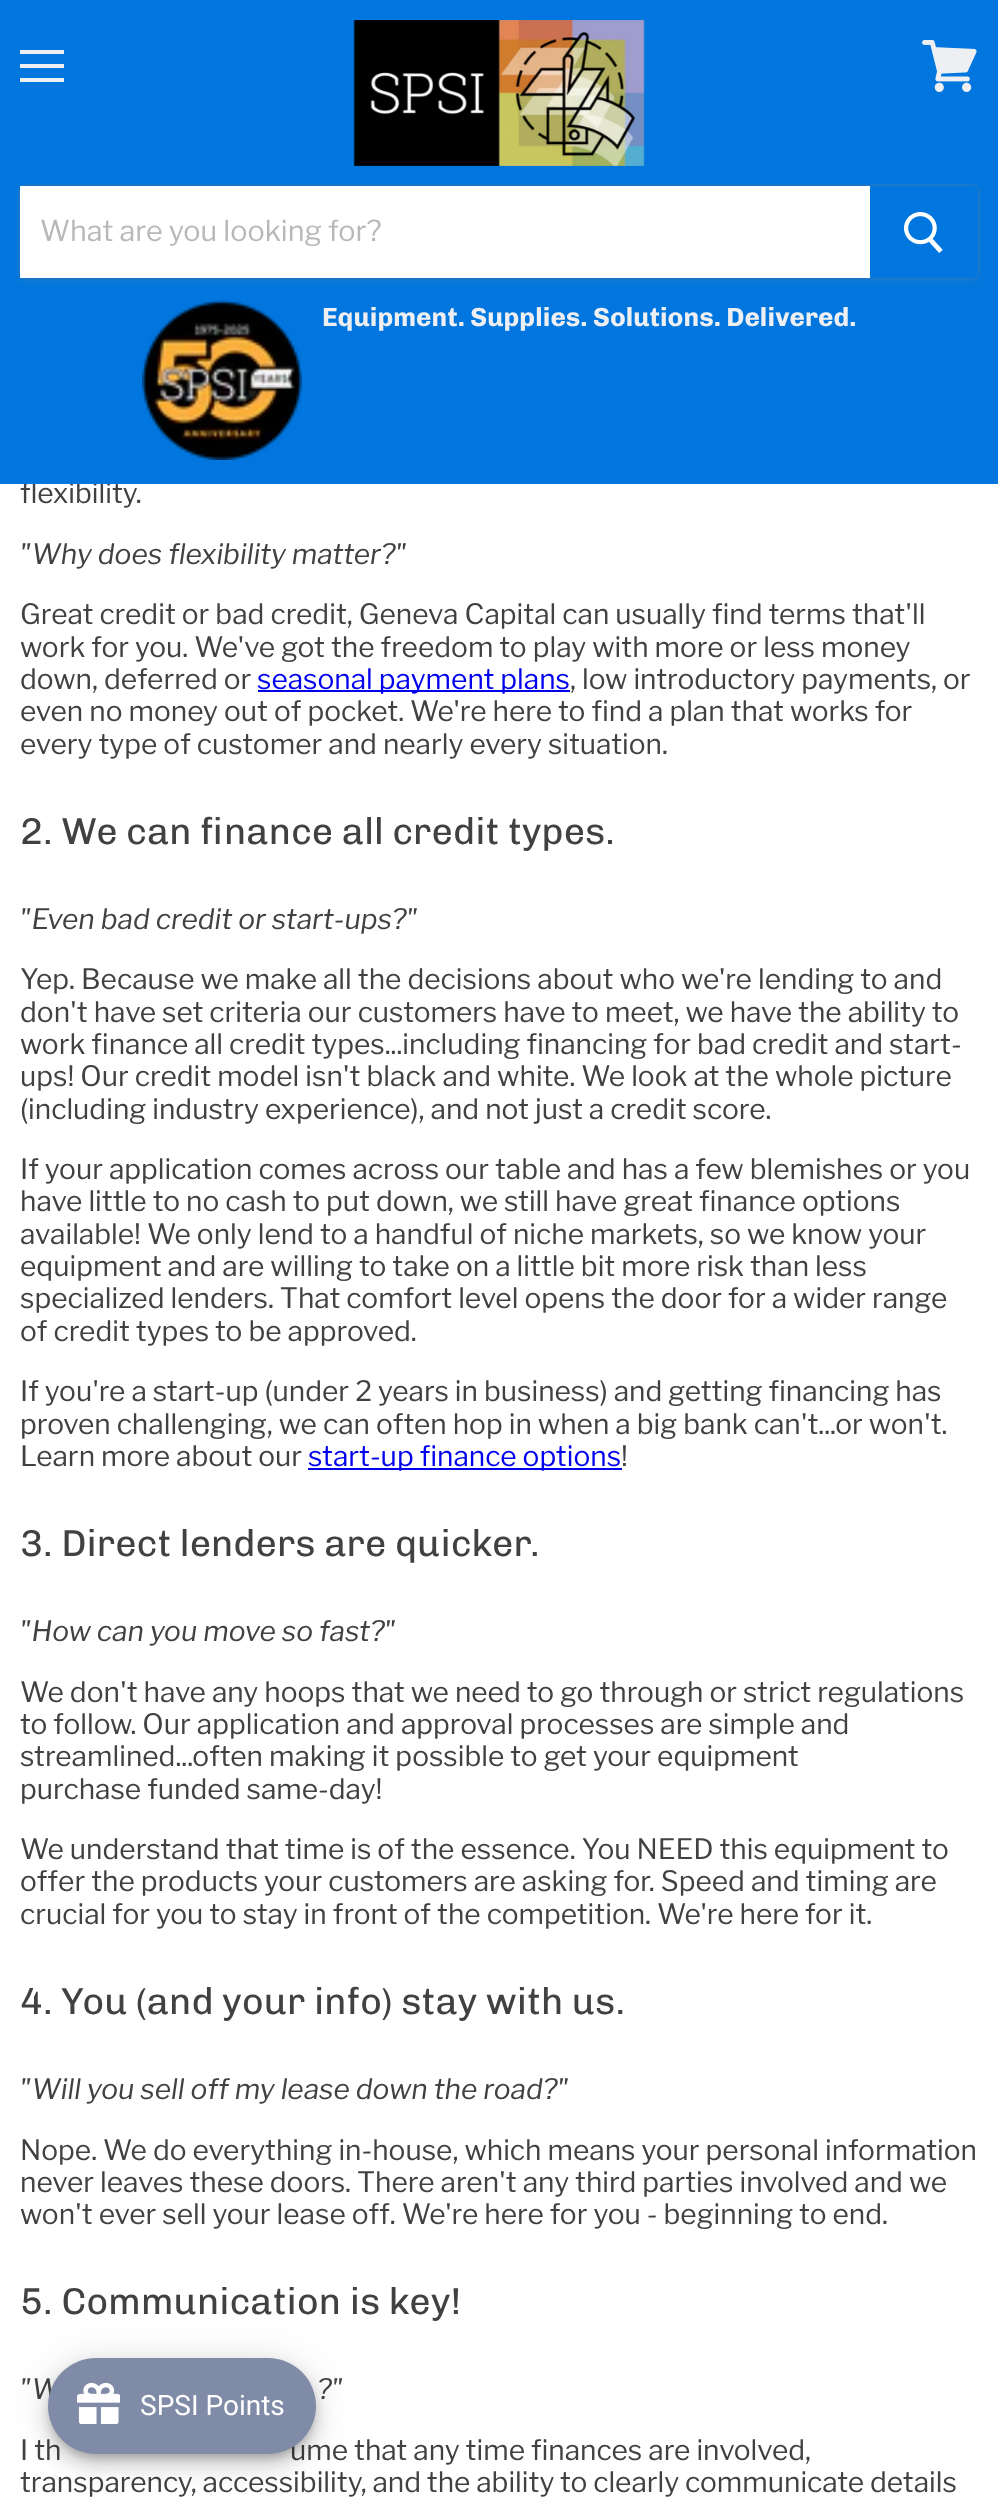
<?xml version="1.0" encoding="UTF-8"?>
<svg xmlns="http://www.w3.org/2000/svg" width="998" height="2502">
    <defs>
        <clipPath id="clip1"><path d="M 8 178 H 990 V 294 H 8 Z M 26 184 H 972 C 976.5 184 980 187.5 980 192 V 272 C 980 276.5 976.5 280 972 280 H 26 C 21.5 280 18 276.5 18 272 V 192 C 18 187.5 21.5 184 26 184 Z" clip-rule="evenodd"/></clipPath>
        <filter id="blur1" x="-50%" y="-200%" width="200%" height="500%"><feGaussianBlur stdDeviation="3"/></filter>
        <filter id="blur2" x="-50%" y="-200%" width="200%" height="500%"><feGaussianBlur stdDeviation="18"/></filter>
        <filter id="blur3" x="-50%" y="-200%" width="200%" height="500%"><feGaussianBlur stdDeviation="10"/></filter>
        <filter id="blur4" x="-50%" y="-200%" width="200%" height="500%"><feGaussianBlur stdDeviation="5"/></filter>
    </defs>
    <rect width="100%" height="100%" fill="#FFFFFF"/>
    <text x="20" y="503" font-family="Libre Franklin" font-size="28.1" fill="#404141">flexibility.</text>
    <rect x="0" y="0" width="998" height="484" fill="#0076DE"/>
    <rect x="20" y="50" width="44" height="4" fill="#EDEFF3"/>
    <rect x="20" y="64" width="44" height="4" fill="#EDEFF3"/>
    <rect x="20" y="78" width="44" height="4" fill="#EDEFF3"/>
    <image x="922" y="40" width="55" height="52" href="img_01.png"/>
    <image x="353" y="20" width="292" height="146" href="img_02.png"/>
    <g clip-path="url(#clip1)">
        <rect x="18" y="188" width="962" height="96" rx="8" fill="#808080" fill-opacity="0.11" filter="url(#blur1)"/>
    </g>
    <rect x="19" y="185" width="960" height="94" rx="7" fill="none" stroke="#808080" stroke-opacity="0.2" stroke-width="2"/>
    <rect x="20" y="186" width="850" height="92" fill="#FFFFFF"/>
    <text x="40" y="241" font-family="Libre Franklin" font-size="28.75" fill="#B8B8B8">What are you looking for?</text>
    <path d="M 871 187 H 972 C 975 187 977 189 977 192 V 272 C 977 275 975 277 972 277 H 871 Z" fill="#0076DE" stroke="#0076DE" stroke-width="2"/>
    <image x="904" y="212" width="39" height="41" href="img_03.png"/>
    <image x="142" y="300" width="160" height="160" href="img_04.png"/>
    <text x="322" y="326" font-family="Chivo" font-size="26.25" font-weight="700" fill="#EDEFF3">Equipment. Supplies. Solutions. Delivered.</text>
    <text x="20" y="564" font-family="Libre Franklin" font-size="28.1" font-style="italic" fill="#404141">"Why does flexibility matter?"</text>
    <text font-family="Libre Franklin" font-size="28.1" fill="#404141">
        <tspan x="20" y="624">Great credit or bad credit, Geneva Capital can usually find terms that'll</tspan>
        <tspan x="20" y="657">work for you. We've got the freedom to play with more or less money</tspan>
        <tspan x="20" y="689">down, deferred or</tspan>
    </text>
    <rect x="258" y="690" width="312" height="2" fill="#0000EE"/>
    <text x="257" y="689" font-family="Libre Franklin" font-size="28.1" fill="#0000EE">seasonal payment plans</text>
    <text x="570" y="689" font-family="Libre Franklin" font-size="28.1" fill="#404141">, low introductory payments, or</text>
    <text font-family="Libre Franklin" font-size="28.1" fill="#404141">
        <tspan x="20" y="721">even no money out of pocket. We're here to find a plan that works for</tspan>
        <tspan x="20" y="754">every type of customer and nearly every situation.</tspan>
    </text>
    <text x="20" y="844" font-family="Chivo" font-size="37.5" fill="#404141">2. We can finance all credit types.</text>
    <text x="20" y="929" font-family="Libre Franklin" font-size="28.1" font-style="italic" fill="#404141">"Even bad credit or start-ups?"</text>
    <text font-family="Libre Franklin" font-size="28.1" fill="#404141">
        <tspan x="20" y="989">Yep. Because we make all the decisions about who we're lending to and</tspan>
        <tspan x="20" y="1022">don't have set criteria our customers have to meet, we have the ability to</tspan>
        <tspan x="20" y="1054">work finance all credit types...including financing for bad credit and start-</tspan>
        <tspan x="20" y="1086">ups! Our credit model isn't black and white. We look at the whole picture</tspan>
        <tspan x="20" y="1119">(including industry experience), and not just a credit score.</tspan>
    </text>
    <text font-family="Libre Franklin" font-size="28.1" fill="#404141">
        <tspan x="20" y="1179">If your application comes across our table and has a few blemishes or you</tspan>
        <tspan x="20" y="1211">have little to no cash to put down, we still have great finance options</tspan>
        <tspan x="20" y="1244">available! We only lend to a handful of niche markets, so we know your</tspan>
        <tspan x="20" y="1276">equipment and are willing to take on a little bit more risk than less</tspan>
        <tspan x="20" y="1308">specialized lenders. That comfort level opens the door for a wider range</tspan>
        <tspan x="20" y="1341">of credit types to be approved.</tspan>
    </text>
    <text font-family="Libre Franklin" font-size="28.1" fill="#404141">
        <tspan x="20" y="1401">If you're a start-up (under 2 years in business) and getting financing has</tspan>
        <tspan x="20" y="1434">proven challenging, we can often hop in when a big bank can't...or won't.</tspan>
        <tspan x="20" y="1466">Learn more about our</tspan>
    </text>
    <rect x="308" y="1468" width="314" height="2" fill="#0000EE"/>
    <text x="308" y="1466" font-family="Libre Franklin" font-size="28.1" fill="#0000EE">start-up finance options</text>
    <text x="621" y="1466" font-family="Libre Franklin" font-size="28.1" fill="#404141">!</text>
    <text x="20" y="1556" font-family="Chivo" font-size="37.5" fill="#404141">3. Direct lenders are quicker.</text>
    <text x="20" y="1641" font-family="Libre Franklin" font-size="28.1" font-style="italic" fill="#404141">"How can you move so fast?"</text>
    <text font-family="Libre Franklin" font-size="28.1" fill="#404141">
        <tspan x="20" y="1702">We don't have any hoops that we need to go through or strict regulations</tspan>
        <tspan x="20" y="1734">to follow. Our application and approval processes are simple and</tspan>
        <tspan x="20" y="1766">streamlined...often making it possible to get your equipment</tspan>
        <tspan x="20" y="1799">purchase funded same-day!</tspan>
    </text>
    <text font-family="Libre Franklin" font-size="28.1" fill="#404141">
        <tspan x="20" y="1859">We understand that time is of the essence. You NEED this equipment to</tspan>
        <tspan x="20" y="1891">offer the products your customers are asking for. Speed and timing are</tspan>
        <tspan x="20" y="1924">crucial for you to stay in front of the competition. We're here for it.</tspan>
    </text>
    <text x="20" y="2014" font-family="Chivo" font-size="37.5" fill="#404141">4. You (and your info) stay with us.</text>
    <text x="20" y="2099" font-family="Libre Franklin" font-size="28.1" font-style="italic" fill="#404141">"Will you sell off my lease down the road?"</text>
    <text font-family="Libre Franklin" font-size="28.1" fill="#404141">
        <tspan x="20" y="2160">Nope. We do everything in-house, which means your personal information</tspan>
        <tspan x="20" y="2192">never leaves these doors. There aren't any third parties involved and we</tspan>
        <tspan x="20" y="2224">won't ever sell your lease off. We're here for you - beginning to end.</tspan>
    </text>
    <text x="20" y="2314" font-family="Chivo" font-size="37.5" fill="#404141">5. Communication is key!</text>
    <text x="20" y="2399" font-family="Libre Franklin" font-size="28.1" font-style="italic" fill="#404141">"W</text>
    <text x="317" y="2399" font-family="Libre Franklin" font-size="28.1" font-style="italic" fill="#404141">?"</text>
    <text x="20" y="2460" font-family="Libre Franklin" font-size="28.1" fill="#404141">I th</text>
    <text x="290" y="2460" font-family="Libre Franklin" font-size="28.1" fill="#404141">ume that any time finances are involved,</text>
    <text x="20" y="2492" word-spacing="-0.25" font-family="Libre Franklin" font-size="28.1" fill="#404141">transparency, accessibility, and the ability to clearly communicate details</text>
    <rect x="48" y="2360" width="268" height="96" rx="48" fill="#000000" fill-opacity="0.12" filter="url(#blur2)"/>
    <rect x="48" y="2370" width="268" height="96" rx="48" fill="#000000" fill-opacity="0.14" filter="url(#blur3)"/>
    <rect x="50" y="2366" width="264" height="92" rx="46" fill="#000000" fill-opacity="0.2" filter="url(#blur4)"/>
    <rect x="48" y="2358" width="268" height="96" rx="48" fill="#808BA7"/>
    <image x="77" y="2382" width="43" height="42" href="img_05.png"/>
    <text x="140" y="2415" font-family="Roboto" font-size="28" fill="#FFFFFF">SPSI Points</text>
</svg>
